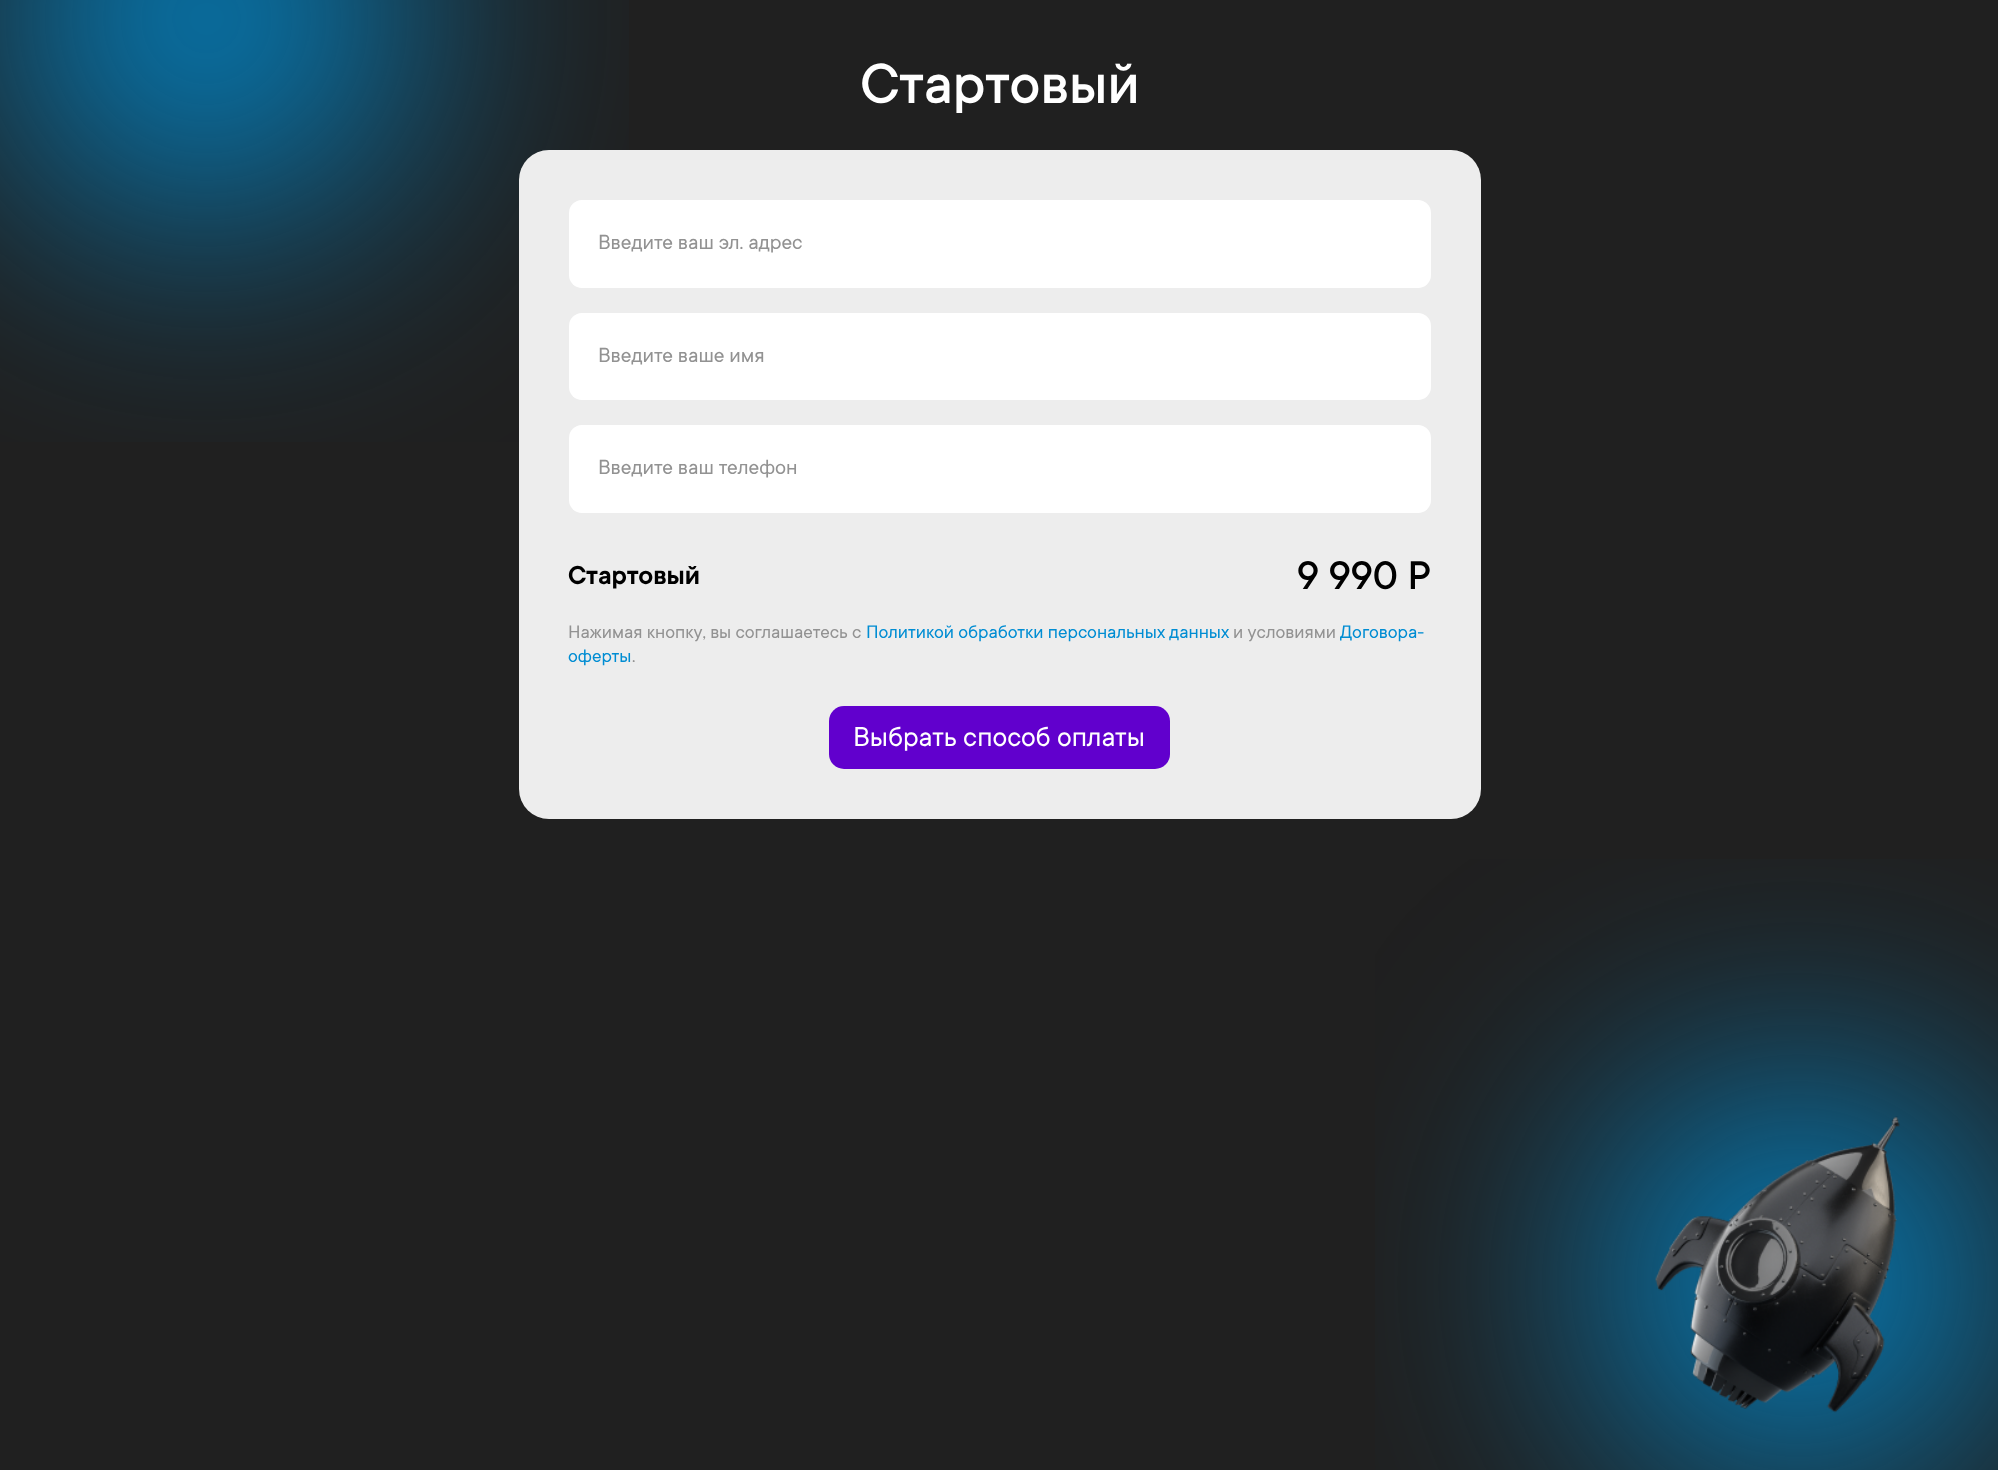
<?xml version="1.0" encoding="UTF-8"?>
<svg xmlns="http://www.w3.org/2000/svg" width="1998" height="1470">
    <rect width="100%" height="100%" fill="#202020"/>
    <image x="0" y="0" width="629" height="442" href="img_01.png"/>
    <image x="1375" y="859" width="623" height="611" href="img_02.png"/>
    <image x="1655" y="1116" width="245" height="297" href="img_03.png"/>
    <text x="860" y="103" font-family="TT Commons" font-size="62.5" font-weight="500" fill="#FFFFFF">Стартовый</text>
    <rect x="519" y="150" width="962" height="669" rx="30" fill="#EDEDED"/>
    <rect x="569" y="200" width="862" height="88" rx="13" fill="#FFFFFF"/>
    <text x="598" y="249" font-family="TT Commons" font-size="22.5" fill="#929292">Введите ваш эл. адрес</text>
    <rect x="569" y="313" width="862" height="87" rx="13" fill="#FFFFFF"/>
    <text x="598" y="362" font-family="TT Commons" font-size="22.5" fill="#929292">Введите ваше имя</text>
    <rect x="569" y="425" width="862" height="88" rx="13" fill="#FFFFFF"/>
    <text x="598" y="474" font-family="TT Commons" font-size="22.5" fill="#929292">Введите ваш телефон</text>
    <text x="568" y="584" font-family="TT Commons" font-size="28.75" font-weight="600" fill="#000000">Стартовый</text>
    <text x="1297" y="589" font-family="TT Commons" font-size="44" font-weight="500" fill="#000000">9 990 Р</text>
    <text x="568" y="638" font-family="TT Commons" font-size="20" fill="#929292">Нажимая кнопку, вы соглашаетесь с</text>
    <text x="866" y="638" font-family="TT Commons" font-size="20" fill="#008DD3">Политикой обработки персональных данных</text>
    <text x="1233" y="638" font-family="TT Commons" font-size="20" fill="#929292">и условиями</text>
    <text x="1340" y="638" font-family="TT Commons" font-size="20" fill="#008DD3">Договора-</text>
    <text x="568" y="662" font-family="TT Commons" font-size="20" fill="#008DD3">оферты</text>
    <text x="632" y="662" font-family="TT Commons" font-size="20" fill="#929292">.</text>
    <rect x="829" y="706" width="341" height="63" rx="15" fill="#6100CD"/>
    <text x="853" y="746" font-family="TT Commons" font-size="30" fill="#FFFFFF">Выбрать способ оплаты</text>
</svg>
